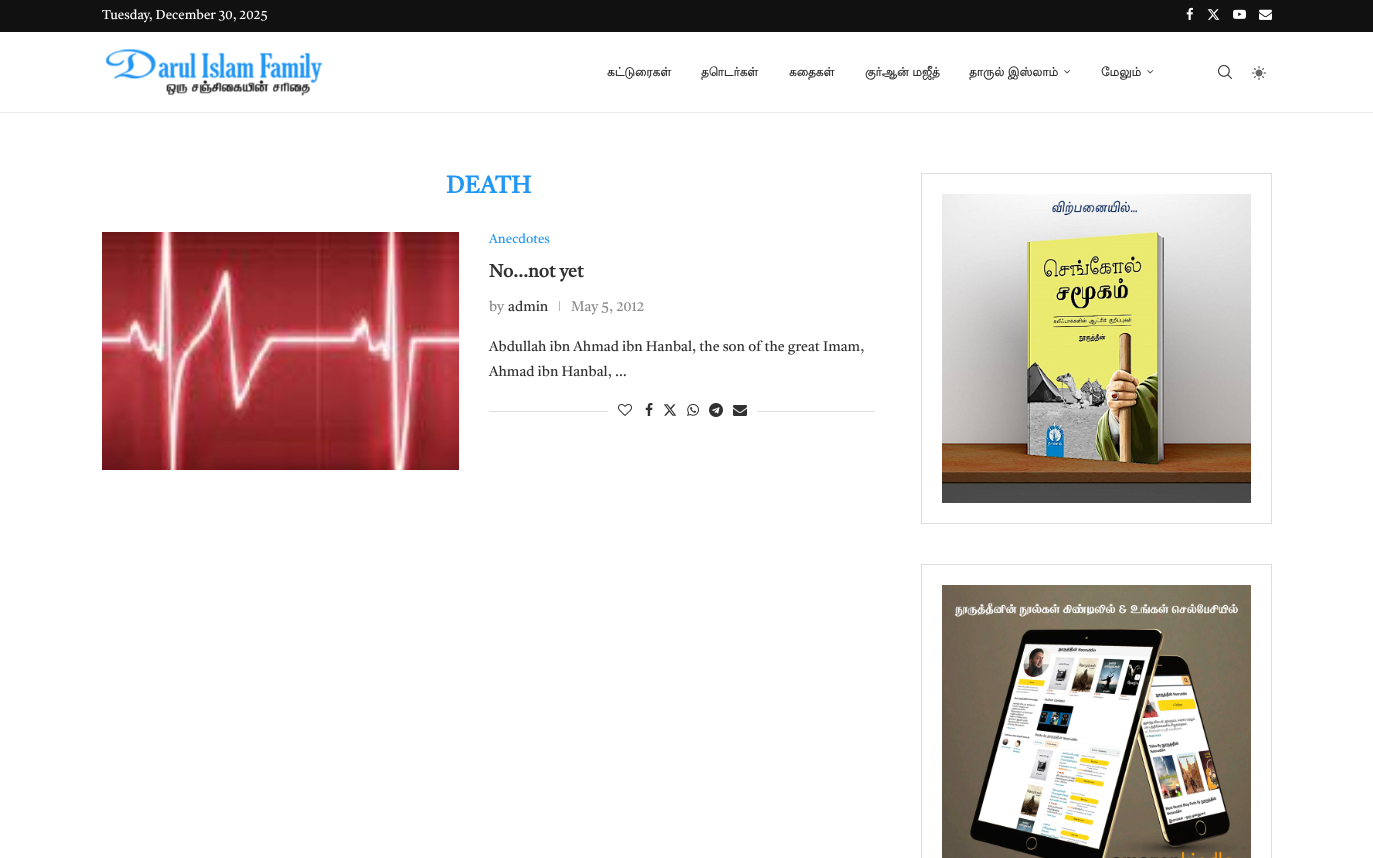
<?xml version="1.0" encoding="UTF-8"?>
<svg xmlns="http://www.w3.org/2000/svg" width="1373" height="858">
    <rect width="100%" height="100%" fill="#FFFFFF"/>
    <rect x="0" y="0" width="1373" height="32" fill="#111111"/>
    <text x="102" y="19" font-family="Tiro Tamil" font-size="13" fill="#FFFFFF">Tuesday, December 30, 2025</text>
    <image x="1186" y="7" width="7" height="13" href="img_01.png"/>
    <image x="1207" y="9" width="13" height="11" href="img_02.png"/>
    <image x="1233" y="9" width="13" height="10" href="img_03.png"/>
    <image x="1259" y="9" width="13" height="11" href="img_04.png"/>
    <rect x="0" y="112" width="1373" height="1" fill="#ECECEC"/>
    <image x="105" y="49" width="218" height="47" href="img_05.png"/>
    <text x="607" y="76" font-family="Lohit Tamil" font-size="12" font-weight="700" fill="#313131">கட்டுரைகள்</text>
    <text x="701" y="76" font-family="Lohit Tamil" font-size="12" font-weight="700" fill="#313131">தொடர்கள்</text>
    <text x="789" y="76" font-family="Lohit Tamil" font-size="12" font-weight="700" fill="#313131">கதைகள்</text>
    <text x="865" y="76" font-family="Lohit Tamil" font-size="12" font-weight="700" fill="#313131">குர்ஆன் மஜீத்</text>
    <text x="969" y="76" font-family="Lohit Tamil" font-size="12" font-weight="700" fill="#313131">தாருல் இஸ்லாம்</text>
    <image x="1064" y="70" width="6" height="4" href="img_06.png"/>
    <text x="1101" y="76" font-family="Lohit Tamil" font-size="12" font-weight="700" fill="#313131">மேலும்</text>
    <image x="1147" y="70" width="7" height="4" href="img_07.png"/>
    <image x="1218" y="65" width="14" height="14" href="img_08.png"/>
    <image x="1252" y="66" width="14" height="14" href="img_09.png"/>
    <text x="446" y="193" font-family="Tiro Tamil" font-size="24" font-weight="700" fill="#2196F3">DEATH</text>
    <image x="102" y="232" width="357" height="238" href="img_10.png"/>
    <text x="489" y="243" font-family="Tiro Tamil" font-size="13" fill="#2196F3">Anecdotes</text>
    <text x="489" y="277" font-family="Tiro Tamil" font-size="18" font-weight="700" fill="#313131">No…not yet</text>
    <text x="489" y="311" font-family="Tiro Tamil" font-size="14" fill="#888888">by</text>
    <text x="508" y="311" font-family="Tiro Tamil" font-size="14" fill="#313131">admin</text>
    <rect x="559" y="301" width="1" height="10" fill="#B8B8B8"/>
    <text x="571" y="311" font-family="Tiro Tamil" font-size="14" fill="#888888">May 5, 2012</text>
    <text font-family="Tiro Tamil" font-size="14" fill="#313131">
        <tspan x="489" y="351">Abdullah ibn Ahmad ibn Hanbal, the son of the great Imam,</tspan>
        <tspan x="489" y="376">Ahmad ibn Hanbal, …</tspan>
    </text>
    <rect x="489" y="411" width="386" height="1" fill="#DEDEDE"/>
    <rect x="608" y="411" width="149" height="1" fill="#FFFFFF"/>
    <image x="618" y="404" width="14" height="12" href="img_11.png"/>
    <image x="645" y="403" width="8" height="13" href="img_12.png"/>
    <image x="663" y="404" width="14" height="12" href="img_13.png"/>
    <image x="687" y="404" width="12" height="12" href="img_14.png"/>
    <image x="709" y="403" width="14" height="14" href="img_15.png"/>
    <image x="733" y="405" width="14" height="11" href="img_16.png"/>
    <rect x="921.5" y="173.5" width="350" height="350" fill="none" stroke="#DEDEDE"/>
    <image x="942" y="194" width="309" height="309" href="img_17.png"/>
    <rect x="921.5" y="564.5" width="350" height="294" fill="none" stroke="#DEDEDE"/>
    <image x="942" y="585" width="309" height="273" href="img_18.png"/>
</svg>
